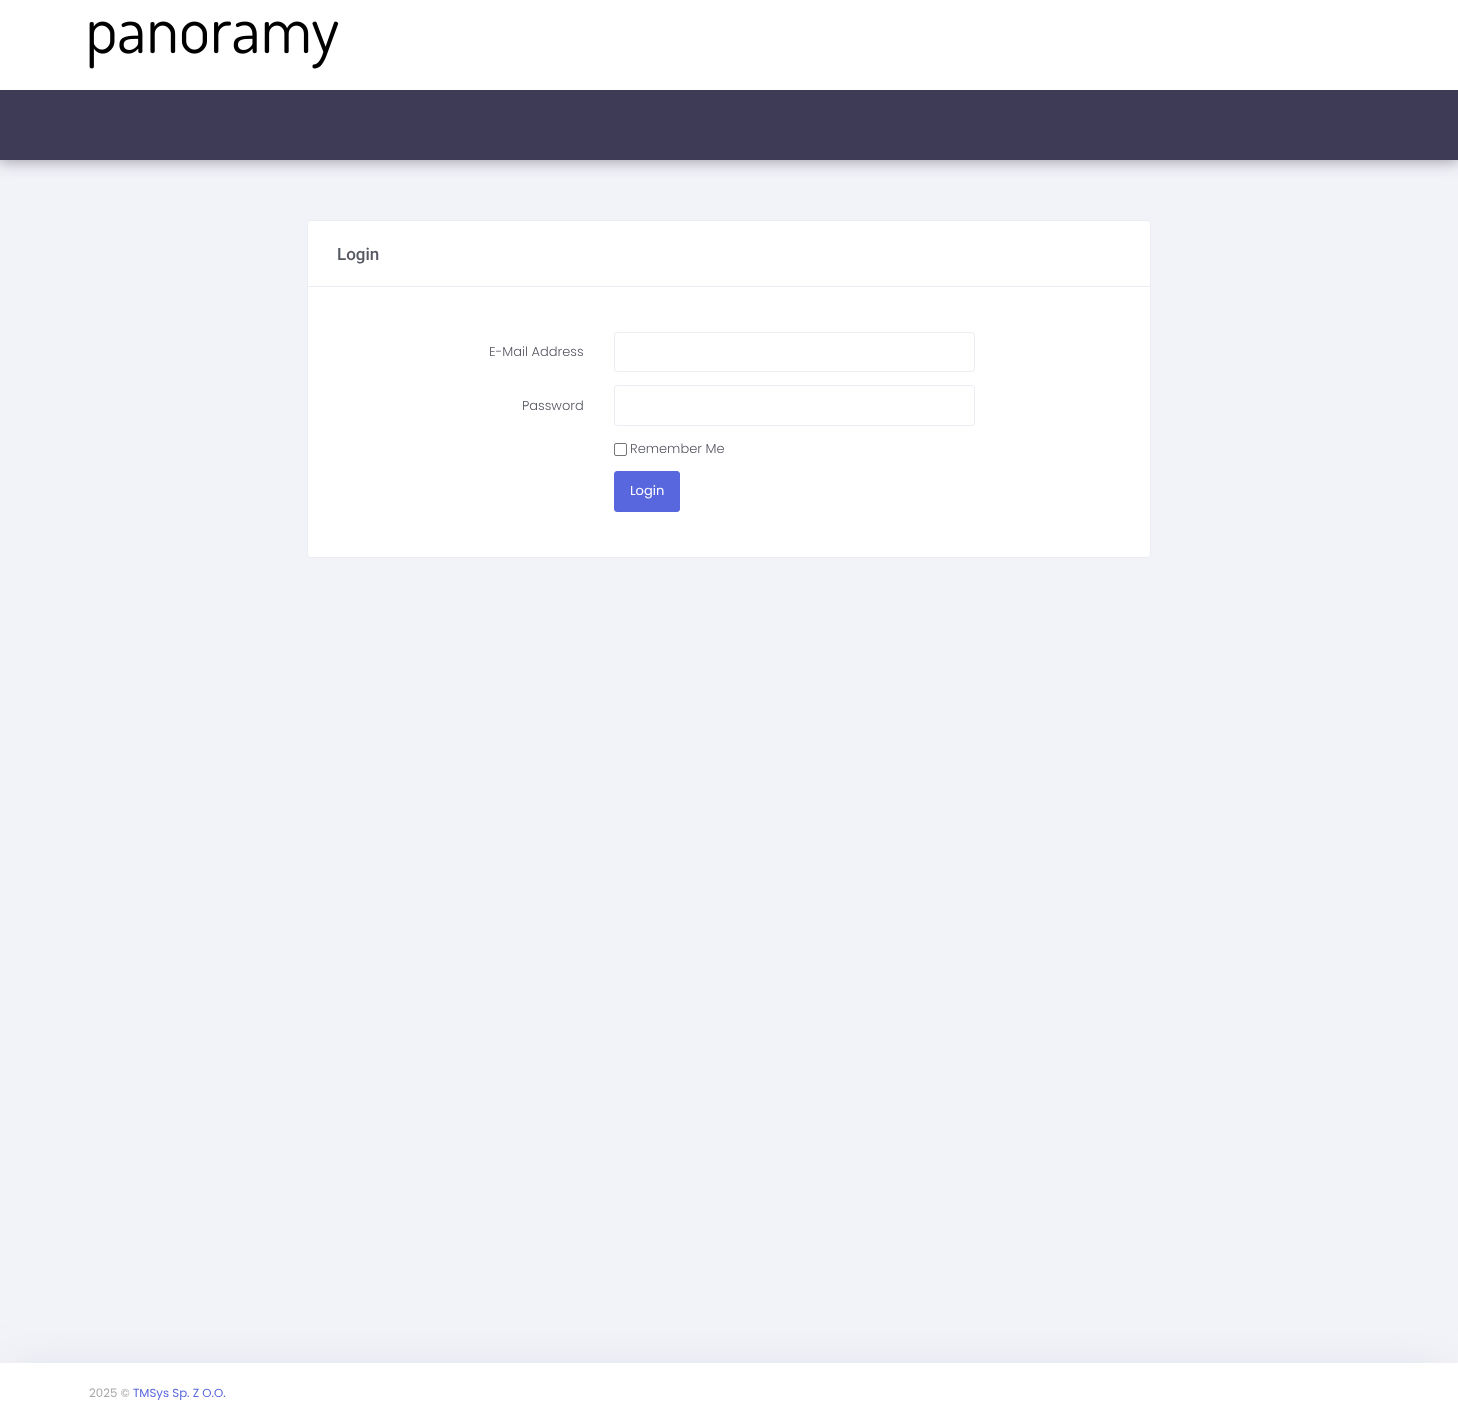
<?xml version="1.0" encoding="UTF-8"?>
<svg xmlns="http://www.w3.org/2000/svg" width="1458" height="1423">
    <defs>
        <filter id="blur1" x="-50%" y="-200%" width="200%" height="500%"><feGaussianBlur stdDeviation="7.5"/></filter>
        <filter id="blur2" x="-50%" y="-200%" width="200%" height="500%"><feGaussianBlur stdDeviation="20.5"/></filter>
    </defs>
    <rect width="100%" height="100%" fill="#F2F3F8"/>
    <rect x="-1" y="0" width="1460" height="162" fill="#514D5C" fill-opacity="0.5" filter="url(#blur1)"/>
    <rect x="0" y="0" width="1458" height="90" fill="#FFFFFF"/>
    <image x="89" y="21" width="250" height="48" href="img_01.png"/>
    <rect x="0" y="90" width="1458" height="70" fill="#3D3B56"/>
    <rect x="307.5" y="220.5" width="843" height="337" rx="3.5" fill="#FFFFFF" stroke="#EBEDF2"/>
    <rect x="308" y="286" width="842" height="1" fill="#EBEDF2"/>
    <text x="337" y="260" font-family="Roboto" font-size="17" font-weight="500" fill="#575962">Login</text>
    <text x="489" y="356" font-family="Poppins" font-size="13" font-weight="300" fill="#575962">E-Mail Address</text>
    <rect x="614.5" y="332.5" width="360" height="39" rx="2.5" fill="none" stroke="#EBEDF2"/>
    <text x="522" y="410" font-family="Poppins" font-size="13" font-weight="300" fill="#575962">Password</text>
    <rect x="614.5" y="385.5" width="360" height="40" rx="2.5" fill="none" stroke="#EBEDF2"/>
    <rect x="614.5" y="443.5" width="12" height="12" rx="1.5" fill="none" stroke="#767676"/>
    <text x="630" y="453" font-family="Poppins" font-size="13" font-weight="300" fill="#575962">Remember Me</text>
    <rect x="614.5" y="471.5" width="65" height="40" rx="2.5" fill="#5867DD" stroke="#5867DD"/>
    <text x="630" y="495" font-family="Poppins" font-size="13" fill="#FFFFFF">Login</text>
    <rect x="12" y="1369" width="1430" height="32" fill="#CAD2DE" fill-opacity="0.61" filter="url(#blur2)"/>
    <rect x="0" y="1363" width="1458" height="60" fill="#FFFFFF"/>
    <text x="89" y="1397" font-family="Poppins" font-size="11.75" fill="#A9A9AA">2025 ©</text>
    <text x="133" y="1397" font-family="Poppins" font-size="11.75" fill="#5867DD">TMSys Sp. Z O.O.</text>
</svg>
